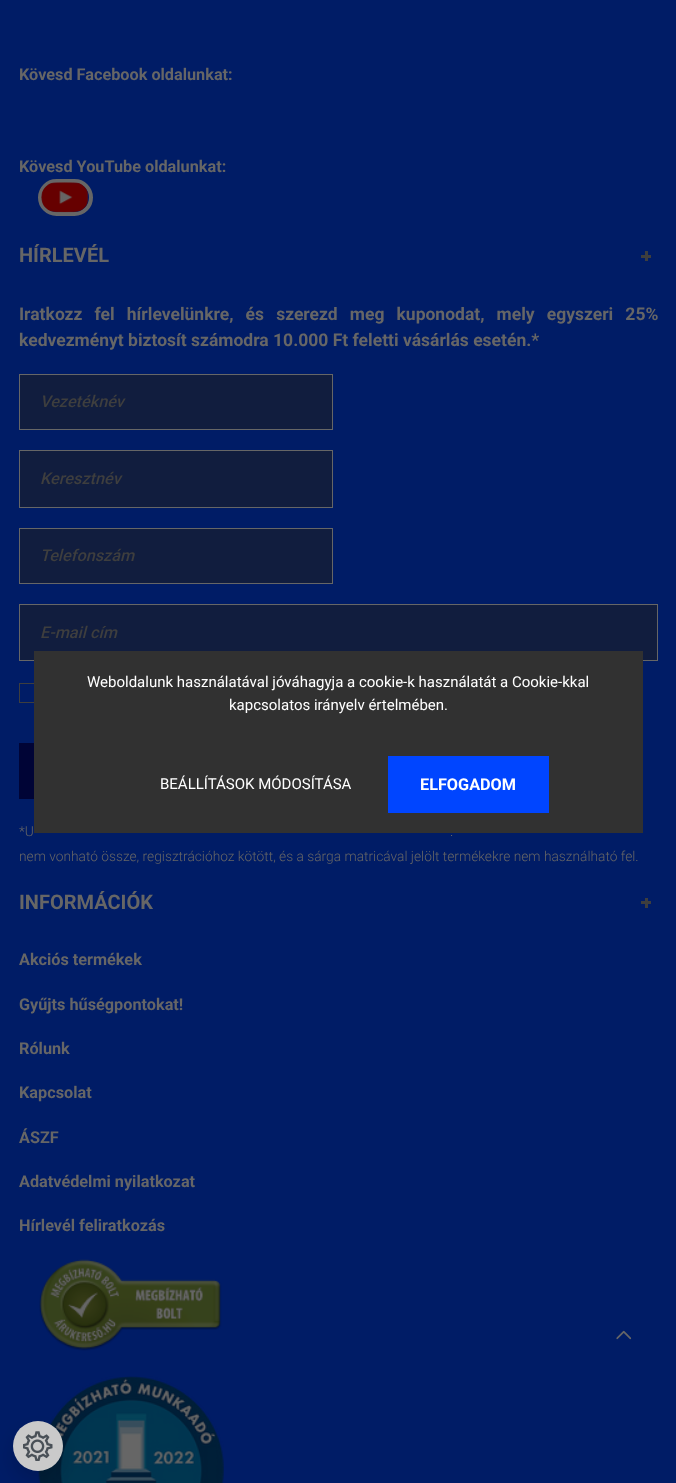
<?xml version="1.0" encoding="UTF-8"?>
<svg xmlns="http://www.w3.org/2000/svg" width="676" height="1483">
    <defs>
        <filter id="blur1" x="-50%" y="-200%" width="200%" height="500%"><feGaussianBlur stdDeviation="10"/></filter>
    </defs>
    <rect width="100%" height="100%" fill="#001C66"/>
    <text x="19" y="80" font-family="Roboto" font-size="16.25" font-weight="700" fill="#666666">Kövesd Facebook oldalunkat:</text>
    <text x="19" y="172" font-family="Roboto" font-size="16.25" font-weight="700" fill="#666666">Kövesd YouTube oldalunkat:</text>
    <rect x="40" y="181" width="51" height="33" rx="16.5" fill="none" stroke="#666666" stroke-width="4"/>
    <image x="41" y="182" width="48" height="31" href="img_01.png"/>
    <text x="19" y="262" font-family="Roboto" font-size="20" font-weight="700" fill="#666666">HÍRLEVÉL</text>
    <rect x="645" y="251" width="3" height="10" fill="#3E3E3E"/>
    <rect x="641" y="255" width="10" height="3" fill="#3E3E3E"/>
    <text font-family="Roboto" font-size="17.5" font-weight="700" fill="#666666">
        <tspan x="19" y="320" word-spacing="7.75">Iratkozz fel hírlevelünkre, és szerezd meg kuponodat, mely egyszeri 25%</tspan>
        <tspan x="19" y="346">kedvezményt biztosít számodra 10.000 Ft feletti vásárlás esetén.*</tspan>
    </text>
    <rect x="19.5" y="374.5" width="313" height="55" fill="#111D3E" stroke="#666666"/>
    <text x="40" y="407" font-family="Roboto" font-size="16.25" font-weight="500" font-style="italic" fill="#3E3E3E">Vezetéknév</text>
    <rect x="19.5" y="450.5" width="313" height="57" fill="#111D3E" stroke="#666666"/>
    <text x="40" y="484" font-family="Roboto" font-size="16.25" font-weight="500" font-style="italic" fill="#3E3E3E">Keresztnév</text>
    <rect x="19.5" y="528.5" width="313" height="55" fill="#111D3E" stroke="#666666"/>
    <text x="40" y="561" font-family="Roboto" font-size="16.25" font-weight="500" font-style="italic" fill="#3E3E3E">Telefonszám</text>
    <rect x="19.5" y="604.5" width="638" height="56" fill="#111D3E" stroke="#666666"/>
    <text x="40" y="638" font-family="Roboto" font-size="16.25" font-weight="500" font-style="italic" fill="#3E3E3E">E-mail cím</text>
    <rect x="19.5" y="683.5" width="19" height="19" fill="none" stroke="#3E3E3E"/>
    <rect x="19" y="743" width="15" height="56" fill="#000436"/>
    <text x="19" y="836" font-family="Roboto" font-size="13.75" font-weight="300" fill="#666666">*U</text>
    <text x="450" y="836" font-family="Roboto" font-size="13.75" font-weight="300" fill="#666666">.</text>
    <text x="19" y="861" font-family="Roboto" font-size="13.75" font-weight="300" fill="#666666">nem vonható össze, regisztrációhoz kötött, és a sárga matricával jelölt termékekre nem használható fel.</text>
    <text x="19" y="909" font-family="Roboto" font-size="20" font-weight="700" fill="#666666">INFORMÁCIÓK</text>
    <rect x="645" y="898" width="3" height="10" fill="#3E3E3E"/>
    <rect x="641" y="901" width="10" height="3" fill="#3E3E3E"/>
    <text x="19" y="965" font-family="Roboto" font-size="16.25" font-weight="700" fill="#666666">Akciós termékek</text>
    <text x="19" y="1010" font-family="Roboto" font-size="16.25" font-weight="700" fill="#666666">Gyűjts hűségpontokat!</text>
    <text x="19" y="1054" font-family="Roboto" font-size="16.25" font-weight="700" fill="#666666">Rólunk</text>
    <text x="19" y="1098" font-family="Roboto" font-size="16.25" font-weight="700" fill="#666666">Kapcsolat</text>
    <text x="19" y="1143" font-family="Roboto" font-size="16.25" font-weight="700" fill="#666666">ÁSZF</text>
    <text x="19" y="1187" font-family="Roboto" font-size="16.25" font-weight="700" fill="#666666">Adatvédelmi nyilatkozat</text>
    <text x="19" y="1231" font-family="Roboto" font-size="16.25" font-weight="700" fill="#666666">Hírlevél feliratkozás</text>
    <image x="39" y="1259" width="183" height="92" href="img_02.png"/>
    <image x="38" y="1376" width="186" height="107" href="img_03.png"/>
    <image x="616" y="1330" width="16" height="10" href="img_04.png"/>
    <rect x="34" y="651" width="609" height="182" fill="#313131"/>
    <text x="87" y="687" font-family="Roboto" font-size="15" fill="#FFFFFF">Weboldalunk használatával jóváhagyja a cookie-k használatát a Cookie-kkal</text>
    <text x="229" y="710" font-family="Roboto" font-size="15" fill="#FFFFFF">kapcsolatos irányelv értelmében.</text>
    <text x="160" y="789" font-family="Roboto" font-size="15" fill="#FFFFFF">BEÁLLÍTÁSOK MÓDOSÍTÁSA</text>
    <rect x="388" y="756" width="161" height="57" fill="#0045FF"/>
    <text x="420" y="790" font-family="Roboto" font-size="16.25" font-weight="700" fill="#FFFFFF">ELFOGADOM</text>
    <rect x="13" y="1431" width="50" height="50" rx="25" fill="#000000" fill-opacity="0.15" filter="url(#blur1)"/>
    <circle cx="38" cy="1446" r="25" fill="#CACACA"/>
    <image x="23" y="1431" width="30" height="30" href="img_05.png"/>
</svg>
